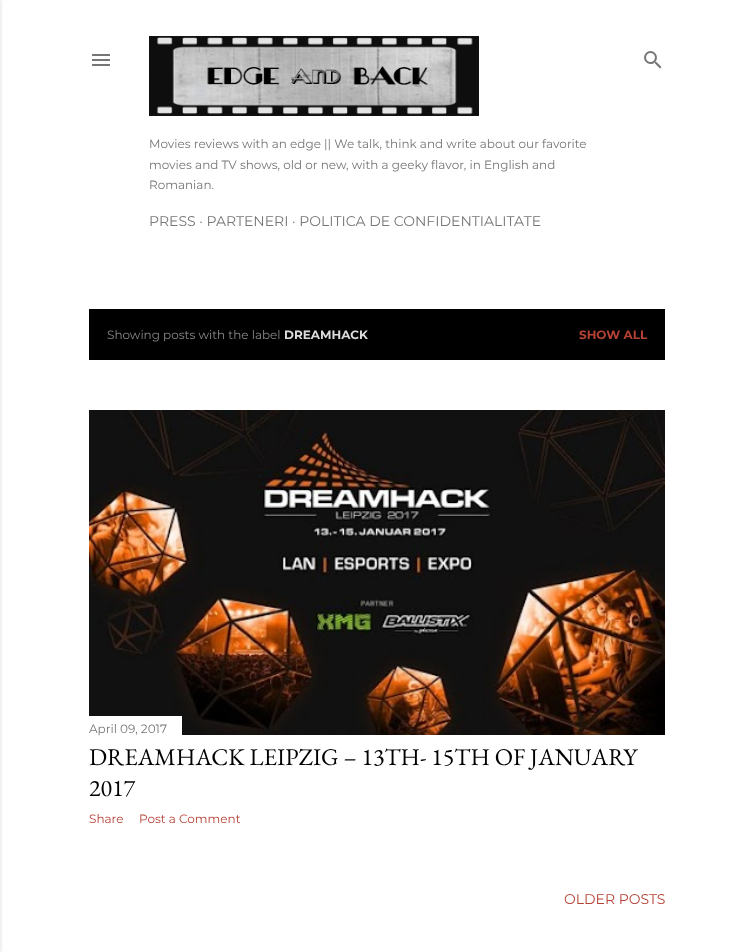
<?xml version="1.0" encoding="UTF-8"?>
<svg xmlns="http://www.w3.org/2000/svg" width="754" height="952">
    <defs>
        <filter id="blur1" x="-50%" y="-200%" width="200%" height="500%"><feGaussianBlur stdDeviation="1.5"/></filter>
    </defs>
    <rect width="100%" height="100%" fill="#FFFFFF"/>
    <rect x="-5" y="0" width="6" height="952" fill="#000000" fill-opacity="0.1" filter="url(#blur1)"/>
    <image x="92" y="54" width="18" height="12" href="img_01.png"/>
    <image x="644" y="51" width="18" height="18" href="img_02.png"/>
    <image x="149" y="36" width="330" height="80" href="img_03.png"/>
    <text font-family="Montserrat" font-size="12" fill="#767676">
        <tspan x="149" y="148">Movies reviews with an edge || We talk, think and write about our favorite</tspan>
        <tspan x="149" y="169">movies and TV shows, old or new, with a geeky flavor, in English and</tspan>
        <tspan x="149" y="189">Romanian.</tspan>
    </text>
    <text x="149" y="226" font-family="Montserrat" font-size="14" fill="#767676">PRESS · PARTENERI · POLITICA DE CONFIDENTIALITATE</text>
    <rect x="89" y="309" width="576" height="51" fill="#000000"/>
    <text x="107" y="339" font-family="Montserrat" font-size="12" fill="#888888">Showing posts with the label</text>
    <text x="284" y="339" font-family="Montserrat" font-size="12" font-weight="700" fill="#DCDCDC">DREAMHACK</text>
    <text x="579" y="339" font-family="Montserrat" font-size="12" font-weight="700" fill="#B54235">SHOW ALL</text>
    <image x="89" y="410" width="576" height="325" href="img_04.png"/>
    <rect x="89" y="716" width="93" height="19" fill="#FFFFFF"/>
    <text x="89" y="733" font-family="Montserrat" font-size="12" fill="#767676">April 09, 2017</text>
    <text font-family="EB Garamond" font-size="24" fill="#000000">
        <tspan x="89" y="765">DREAMHACK LEIPZIG – 13TH- 15TH OF JANUARY</tspan>
        <tspan x="89" y="796">2017</tspan>
    </text>
    <text x="89" y="823" font-family="Montserrat" font-size="12" fill="#B54235">Share</text>
    <text x="139" y="823" font-family="Montserrat" font-size="12" fill="#B54235">Post a Comment</text>
    <text x="564" y="904" font-family="Montserrat" font-size="14" fill="#B54235">OLDER POSTS</text>
</svg>
